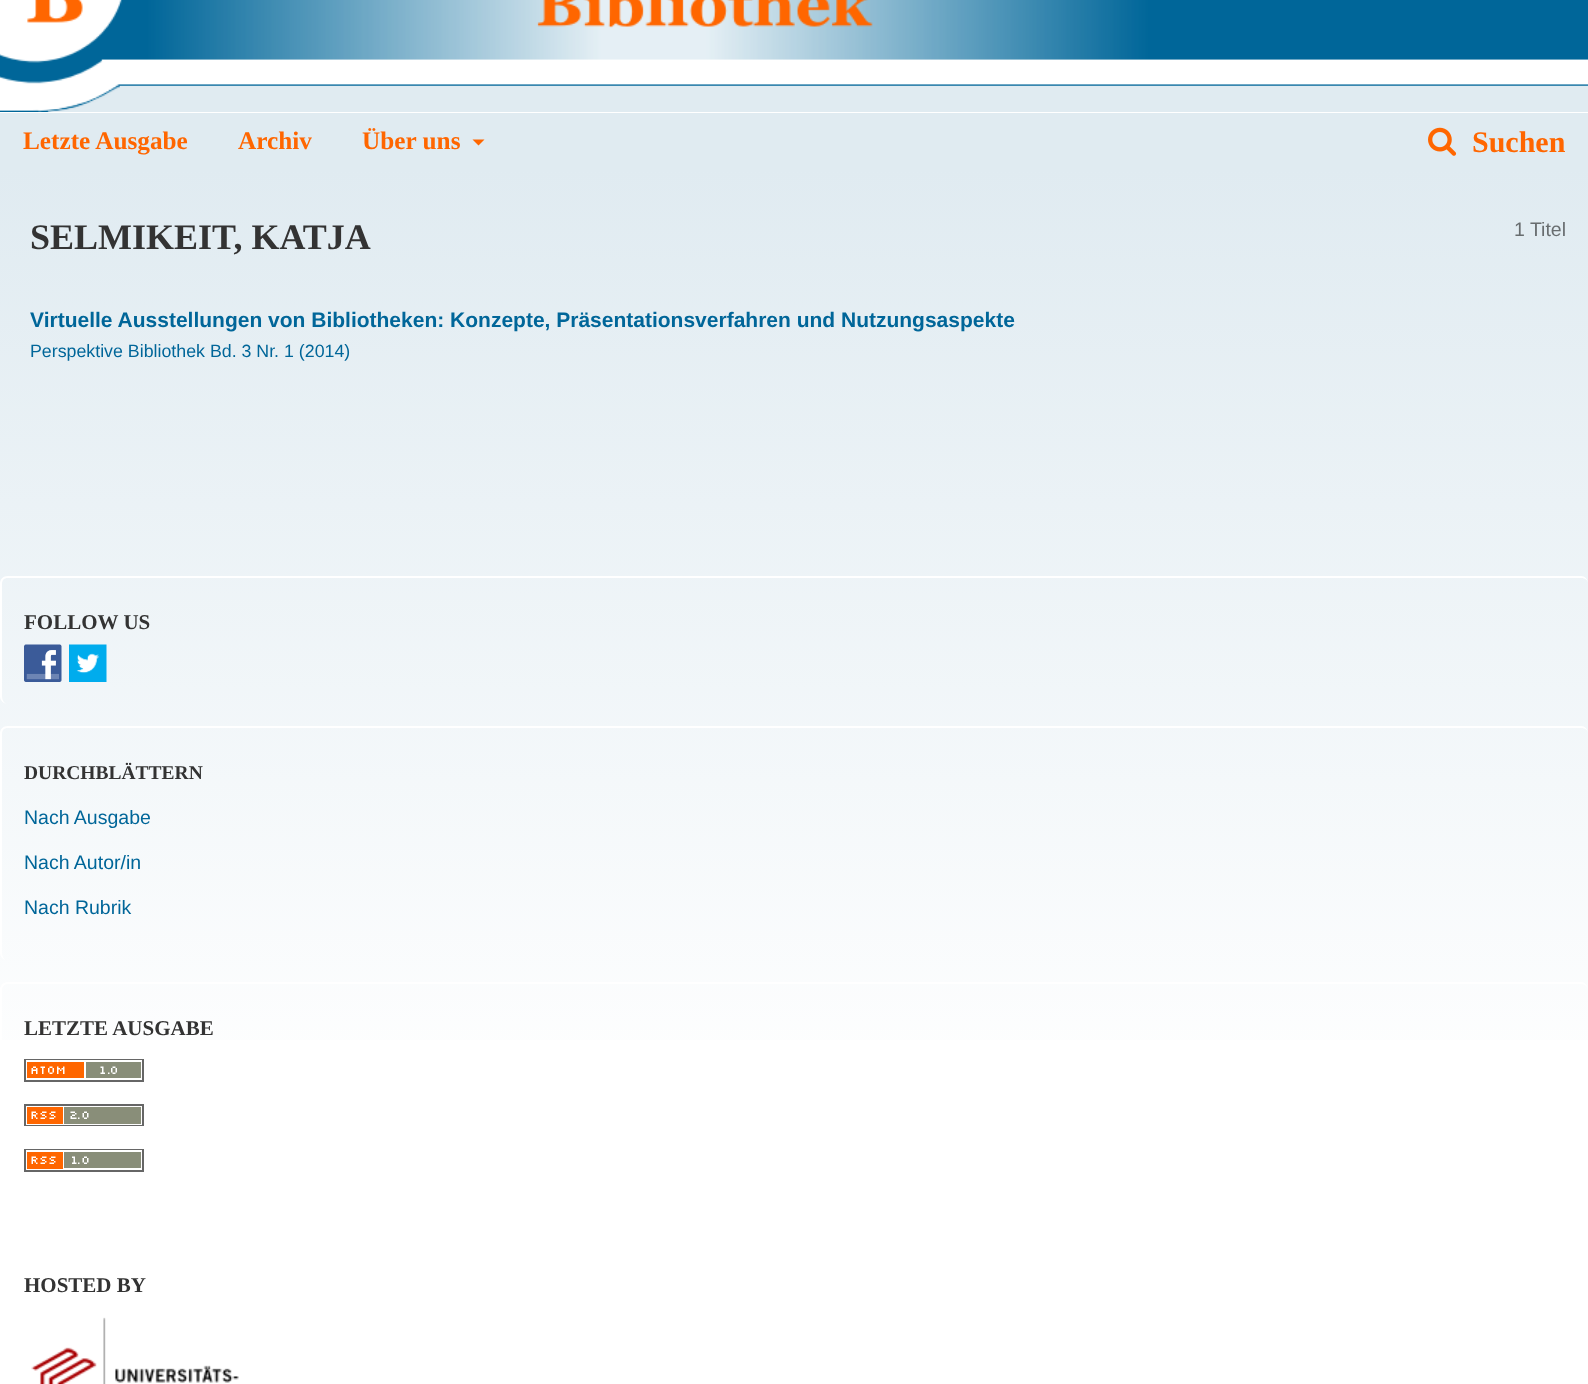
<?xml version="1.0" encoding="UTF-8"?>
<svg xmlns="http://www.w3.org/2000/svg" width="1588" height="1384">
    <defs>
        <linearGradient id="g1" gradientUnits="userSpaceOnUse" x1="794" y1="169" x2="794" y2="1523"><stop offset="0" stop-color="#E0EBF1"/><stop offset="0.7" stop-color="#FFFFFF"/></linearGradient>
    </defs>
    <rect width="100%" height="100%" fill="#FFFFFF"/>
    <image x="0" y="0" width="1588" height="112" href="img_01.png"/>
    <rect x="0" y="113" width="1588" height="57" fill="#E0EBF1"/>
    <text x="23" y="149" font-family="Liberation Serif" font-size="25.25" font-weight="700" fill="#FF6600">Letzte Ausgabe</text>
    <text x="238" y="149" font-family="Liberation Serif" font-size="25.25" font-weight="700" fill="#FF6600">Archiv</text>
    <text x="362" y="149" font-family="Liberation Serif" font-size="25.25" font-weight="700" fill="#FF6600">Über uns</text>
    <path d="M 472.5 139.5 H 484.5 L 478.5 145.5 Z" fill="#FF6600"/>
    <image x="1428" y="127" width="29" height="29" href="img_02.png"/>
    <text x="1472" y="152" font-family="Liberation Serif" font-size="30" font-weight="700" fill="#FF6600">Suchen</text>
    <rect x="0" y="170" width="1588" height="870" fill="url(#g1)"/>
    <text x="30" y="249" font-family="Liberation Serif" font-size="36" font-weight="700" fill="#333333">SELMIKEIT, KATJA</text>
    <text x="1514" y="236" font-family="Liberation Sans" font-size="19.5" fill="#686D6F">1 Titel</text>
    <text x="30" y="327" font-family="Liberation Sans" font-size="21" font-weight="700" fill="#006699">Virtuelle Ausstellungen von Bibliotheken: Konzepte, Präsentationsverfahren und Nutzungsaspekte</text>
    <text x="30" y="357" font-family="Liberation Sans" font-size="17.8" fill="#006699">Perspektive Bibliothek Bd. 3 Nr. 1 (2014)</text>
    <path d="M 8 576 H 1581 C 1585 576 1588 579 1588 584 V 696 C 1588 700 1585 704 1581 704 H 8 C 3 704 0 700 0 696 V 584 C 0 579 3 576 8 576 Z M 8 578 H 1581 C 1585 578 1588 580 1588 584 V 696 C 1588 700 1585 704 1581 704 H 8 C 4 704 2 700 2 696 V 584 C 2 580 4 578 8 578 Z" fill="#FFFFFF" fill-rule="evenodd"/>
    <text x="24" y="629" font-family="Liberation Serif" font-size="21" font-weight="700" fill="#333333">FOLLOW US</text>
    <image x="24" y="644" width="38" height="38" href="img_03.png"/>
    <image x="69" y="644" width="38" height="38" href="img_04.png"/>
    <path d="M 8 726 H 1581 C 1585 726 1588 729 1588 734 V 952 C 1588 957 1585 960 1581 960 H 8 C 3 960 0 957 0 952 V 734 C 0 729 3 726 8 726 Z M 8 728 H 1581 C 1585 728 1588 730 1588 734 V 952 C 1588 957 1585 960 1581 960 H 8 C 4 960 2 957 2 952 V 734 C 2 730 4 728 8 728 Z" fill="#FFFFFF" fill-rule="evenodd"/>
    <text x="24" y="779" font-family="Liberation Serif" font-size="19.5" font-weight="700" fill="#333333">DURCHBLÄTTERN</text>
    <text x="24" y="824" font-family="Liberation Sans" font-size="19.5" fill="#006699">Nach Ausgabe</text>
    <text x="24" y="869" font-family="Liberation Sans" font-size="19.5" fill="#006699">Nach Autor/in</text>
    <text x="24" y="914" font-family="Liberation Sans" font-size="19.5" fill="#006699">Nach Rubrik</text>
    <path d="M 8 982 H 1581 C 1585 982 1588 986 1588 990 V 1209 C 1588 1213 1585 1216 1581 1216 H 8 C 3 1216 0 1213 0 1209 V 990 C 0 986 3 982 8 982 Z M 8 984 H 1581 C 1585 984 1588 987 1588 990 V 1209 C 1588 1213 1585 1216 1581 1216 H 8 C 4 1216 2 1213 2 1209 V 990 C 2 987 4 984 8 984 Z" fill="#FFFFFF" fill-rule="evenodd"/>
    <text x="24" y="1035" font-family="Liberation Serif" font-size="21" font-weight="700" fill="#333333">LETZTE AUSGABE</text>
    <image x="24" y="1059" width="120" height="23" href="img_05.png"/>
    <image x="24" y="1104" width="120" height="22" href="img_06.png"/>
    <image x="24" y="1149" width="120" height="23" href="img_07.png"/>
    <text x="24" y="1292" font-family="Liberation Serif" font-size="21" font-weight="700" fill="#333333">HOSTED BY</text>
    <image x="31" y="1317" width="208" height="67" href="img_08.png"/>
</svg>
